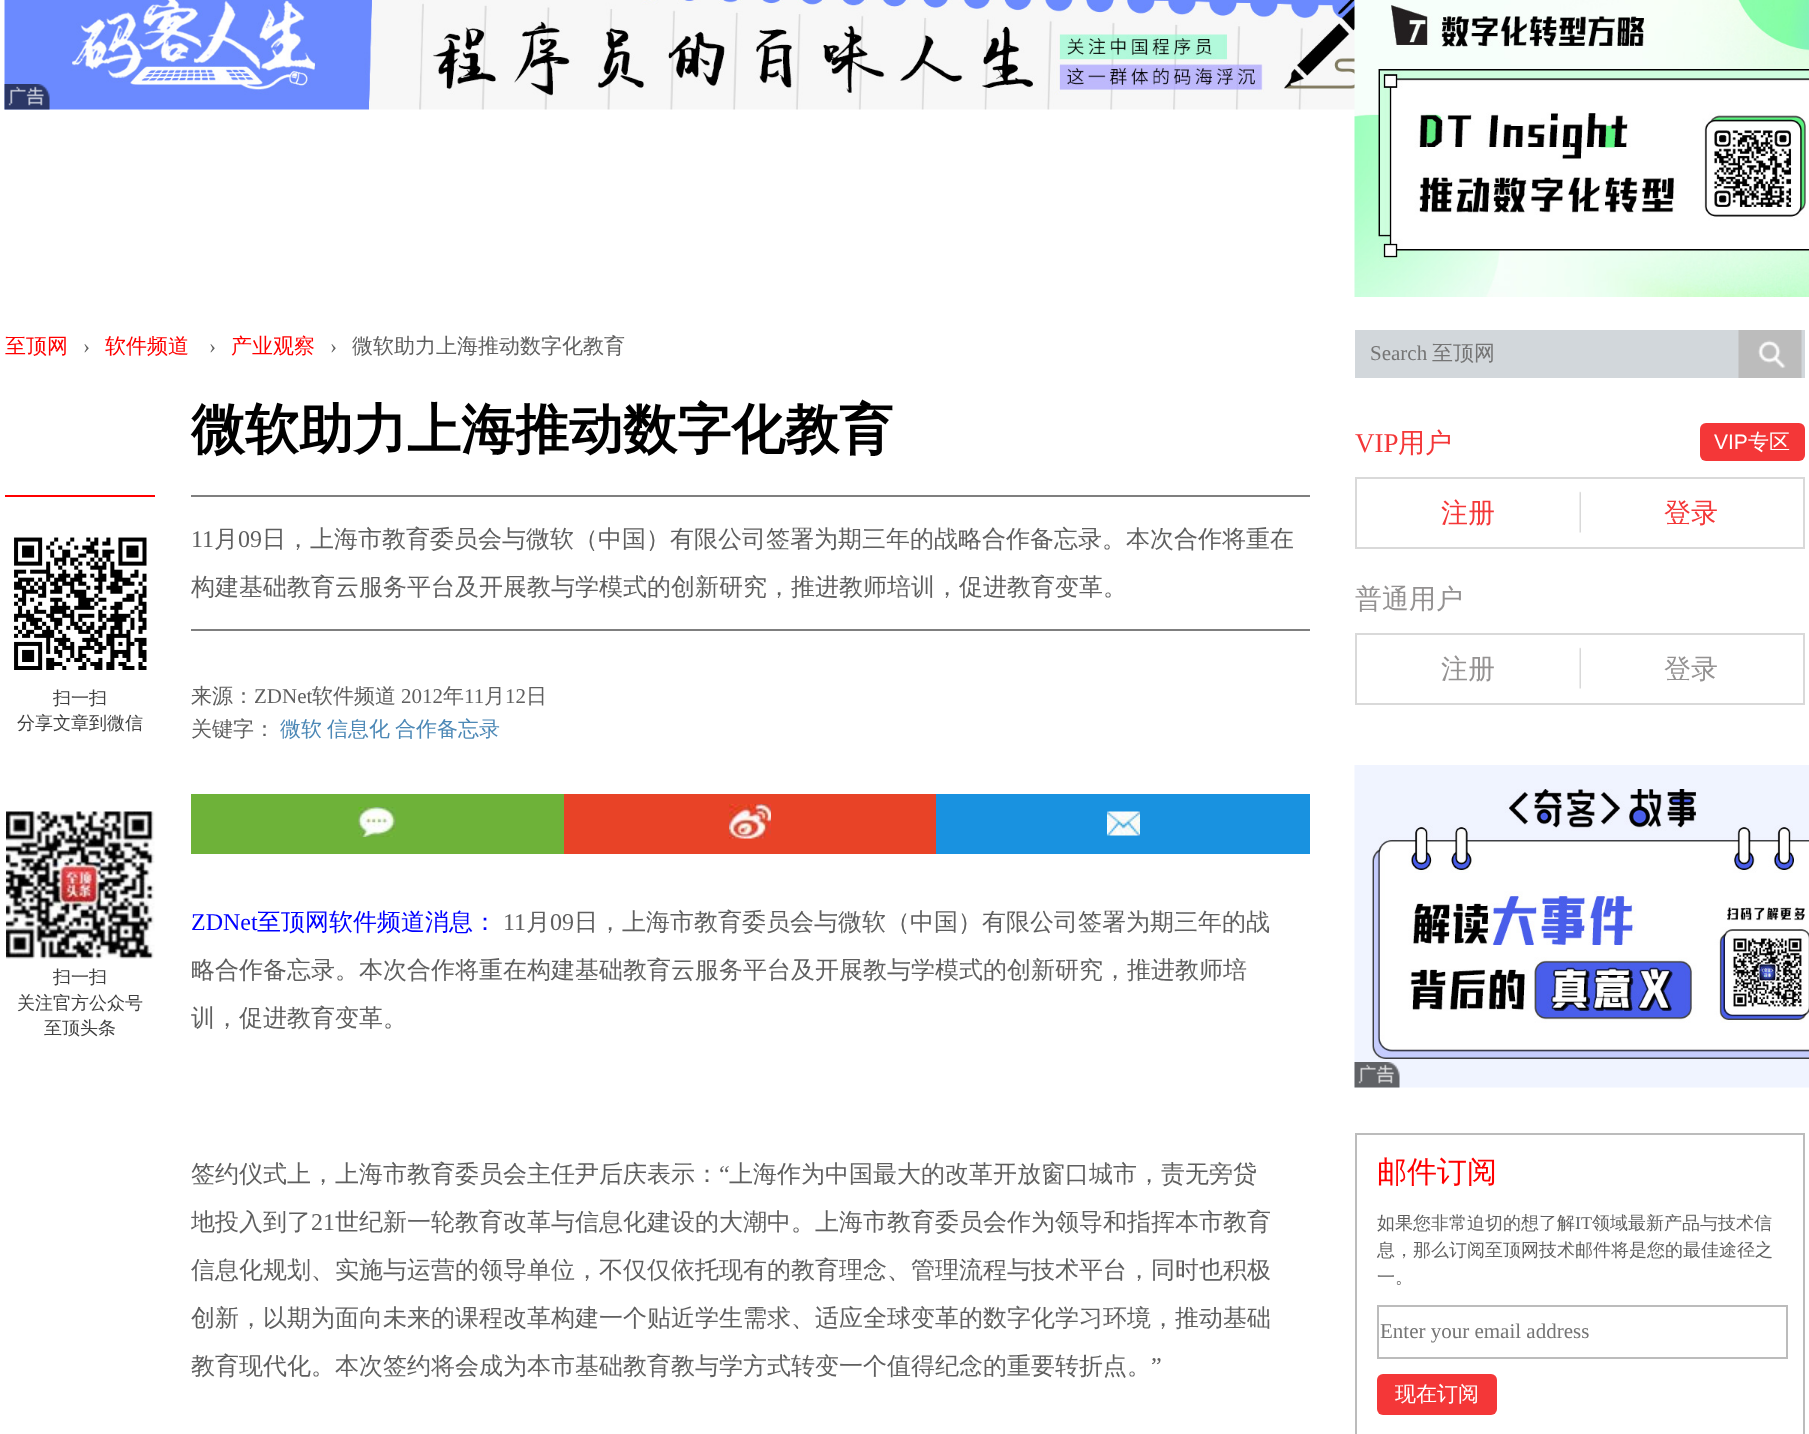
<?xml version="1.0" encoding="UTF-8"?>
<svg xmlns="http://www.w3.org/2000/svg" width="1809" height="1434">
    <rect width="100%" height="100%" fill="#FFFFFF"/>
    <image x="4" y="0" width="1351" height="110" href="img_01.png"/>
    <image x="4" y="84" width="46" height="26" href="img_02.png"/>
    <image x="1354" y="0" width="455" height="297" href="img_03.png"/>
    <text x="5" y="353" font-family="WenQuanYi Zen Hei" font-size="21" font-weight="500" fill="#FF0000">至顶网</text>
    <text x="83" y="353" font-family="Liberation Serif" font-size="21" fill="#5F5F5F">›</text>
    <text x="105" y="353" font-family="WenQuanYi Zen Hei" font-size="21" font-weight="500" fill="#FF0000">软件频道</text>
    <text x="209" y="353" font-family="Liberation Serif" font-size="21" fill="#5F5F5F">›</text>
    <text x="231" y="353" font-family="WenQuanYi Zen Hei" font-size="21" font-weight="500" fill="#FF0000">产业观察</text>
    <text x="330" y="353" font-family="Liberation Serif" font-size="21" fill="#5F5F5F">›</text>
    <text x="352" y="353" font-family="WenQuanYi Zen Hei" font-size="21" font-weight="500" fill="#5F5F5F">微软助力上海推动数字化教育</text>
    <text x="191" y="448" font-family="WenQuanYi Zen Hei" font-size="54" font-weight="700" fill="#000000">微软助力上海推动数字化教育</text>
    <rect x="5" y="495" width="150" height="2" fill="#FF0000"/>
    <image x="14" y="537" width="133" height="133" href="img_04.png"/>
    <text x="53" y="704" font-family="WenQuanYi Zen Hei" font-size="18" font-weight="500" fill="#404040">扫一扫</text>
    <text x="17" y="729" font-family="WenQuanYi Zen Hei" font-size="18" font-weight="500" fill="#404040">分享文章到微信</text>
    <image x="6" y="811" width="149" height="148" href="img_05.png"/>
    <text x="53" y="983" font-family="WenQuanYi Zen Hei" font-size="18" font-weight="500" fill="#404040">扫一扫</text>
    <text x="17" y="1009" font-family="WenQuanYi Zen Hei" font-size="18" font-weight="500" fill="#404040">关注官方公众号</text>
    <text x="44" y="1034" font-family="WenQuanYi Zen Hei" font-size="18" font-weight="500" fill="#404040">至顶头条</text>
    <rect x="191" y="495" width="1119" height="2" fill="#7F7F7F"/>
    <rect x="191" y="629" width="1119" height="2" fill="#7F7F7F"/>
    <text x="191" y="547" font-family="Liberation Serif" font-size="24" fill="#5F5F5F">11</text>
    <text x="214" y="547" font-family="WenQuanYi Zen Hei" font-size="24" font-weight="500" fill="#5F5F5F">月</text>
    <text x="238" y="547" font-family="Liberation Serif" font-size="24" fill="#5F5F5F">09</text>
    <text x="262" y="547" font-family="WenQuanYi Zen Hei" font-size="24" font-weight="500" fill="#5F5F5F">日，上海市教育委员会与微软（中国）有限公司签署为期三年的战略合作备忘录。本次合作将重在</text>
    <text x="191" y="595" font-family="WenQuanYi Zen Hei" font-size="24" font-weight="500" fill="#5F5F5F">构建基础教育云服务平台及开展教与学模式的创新研究，推进教师培训，促进教育变革。</text>
    <text x="191" y="703" font-family="WenQuanYi Zen Hei" font-size="21" font-weight="500" fill="#5F5F5F">来源：</text>
    <text x="254" y="703" font-family="Liberation Serif" font-size="21" fill="#5F5F5F">ZDNet</text>
    <text x="312" y="703" font-family="WenQuanYi Zen Hei" font-size="21" font-weight="500" fill="#5F5F5F">软件频道</text>
    <text x="401" y="703" font-family="Liberation Serif" font-size="21" fill="#5F5F5F">2012</text>
    <text x="443" y="703" font-family="WenQuanYi Zen Hei" font-size="21" font-weight="500" fill="#5F5F5F">年</text>
    <text x="464" y="703" font-family="Liberation Serif" font-size="21" fill="#5F5F5F">11</text>
    <text x="484" y="703" font-family="WenQuanYi Zen Hei" font-size="21" font-weight="500" fill="#5F5F5F">月</text>
    <text x="505" y="703" font-family="Liberation Serif" font-size="21" fill="#5F5F5F">12</text>
    <text x="526" y="703" font-family="WenQuanYi Zen Hei" font-size="21" font-weight="500" fill="#5F5F5F">日</text>
    <text x="191" y="736" font-family="WenQuanYi Zen Hei" font-size="21" font-weight="500" fill="#5F5F5F">关键字：</text>
    <text x="280" y="736" font-family="WenQuanYi Zen Hei" font-size="21" font-weight="500" fill="#4C88B6">微软</text>
    <text x="327" y="736" font-family="WenQuanYi Zen Hei" font-size="21" font-weight="500" fill="#4C88B6">信息化</text>
    <text x="395" y="736" font-family="WenQuanYi Zen Hei" font-size="21" font-weight="500" fill="#4C88B6">合作备忘录</text>
    <rect x="191" y="794" width="373" height="60" fill="#6EB239"/>
    <image x="358" y="807" width="38" height="30" href="img_06.png"/>
    <rect x="564" y="794" width="372" height="60" fill="#E84327"/>
    <image x="729" y="804" width="42" height="35" href="img_07.png"/>
    <rect x="936" y="794" width="374" height="60" fill="#1992E0"/>
    <image x="1107" y="811" width="33" height="25" href="img_08.png"/>
    <text x="191" y="930" font-family="Liberation Serif" font-size="24" fill="#0000FF">ZDNet</text>
    <text x="257" y="930" font-family="WenQuanYi Zen Hei" font-size="24" font-weight="500" fill="#0000FF">至顶网软件频道消息：</text>
    <text x="503" y="930" font-family="Liberation Serif" font-size="24" fill="#5F5F5F">11</text>
    <text x="526" y="930" font-family="WenQuanYi Zen Hei" font-size="24" font-weight="500" fill="#5F5F5F">月</text>
    <text x="550" y="930" font-family="Liberation Serif" font-size="24" fill="#5F5F5F">09</text>
    <text x="574" y="930" font-family="WenQuanYi Zen Hei" font-size="24" font-weight="500" fill="#5F5F5F">日，上海市教育委员会与微软（中国）有限公司签署为期三年的战</text>
    <text x="191" y="978" font-family="WenQuanYi Zen Hei" font-size="24" font-weight="500" fill="#5F5F5F">略合作备忘录。本次合作将重在构建基础教育云服务平台及开展教与学模式的创新研究，推进教师培</text>
    <text x="191" y="1026" font-family="WenQuanYi Zen Hei" font-size="24" font-weight="500" fill="#5F5F5F">训，促进教育变革。</text>
    <text x="191" y="1182" font-family="WenQuanYi Zen Hei" font-size="24" font-weight="500" fill="#5F5F5F">签约仪式上，上海市教育委员会主任尹后庆表示：</text>
    <text x="719" y="1182" font-family="Liberation Serif" font-size="24" fill="#5F5F5F">“</text>
    <text x="729" y="1182" font-family="WenQuanYi Zen Hei" font-size="24" font-weight="500" fill="#5F5F5F">上海作为中国最大的改革开放窗口城市，责无旁贷</text>
    <text x="191" y="1230" font-family="WenQuanYi Zen Hei" font-size="24" font-weight="500" fill="#5F5F5F">地投入到了</text>
    <text x="311" y="1230" font-family="Liberation Serif" font-size="24" fill="#5F5F5F">21</text>
    <text x="335" y="1230" font-family="WenQuanYi Zen Hei" font-size="24" font-weight="500" fill="#5F5F5F">世纪新一轮教育改革与信息化建设的大潮中。上海市教育委员会作为领导和指挥本市教育</text>
    <text x="191" y="1278" font-family="WenQuanYi Zen Hei" font-size="24" font-weight="500" fill="#5F5F5F">信息化规划、实施与运营的领导单位，不仅仅依托现有的教育理念、管理流程与技术平台，同时也积极</text>
    <text x="191" y="1326" font-family="WenQuanYi Zen Hei" font-size="24" font-weight="500" fill="#5F5F5F">创新，以期为面向未来的课程改革构建一个贴近学生需求、适应全球变革的数字化学习环境，推动基础</text>
    <text x="191" y="1374" font-family="WenQuanYi Zen Hei" font-size="24" font-weight="500" fill="#5F5F5F">教育现代化。本次签约将会成为本市基础教育教与学方式转变一个值得纪念的重要转折点。</text>
    <text x="1151" y="1374" font-family="Liberation Serif" font-size="24" fill="#5F5F5F">”</text>
    <rect x="1355" y="330" width="450" height="48" fill="#D2D7DB"/>
    <text x="1370" y="360" font-family="Liberation Serif" font-size="21" fill="#757575">Search</text>
    <text x="1432" y="360" font-family="WenQuanYi Zen Hei" font-size="21" font-weight="500" fill="#757575">至顶网</text>
    <image x="1738" y="330" width="64" height="48" href="img_09.png"/>
    <text x="1355" y="452" font-family="Liberation Serif" font-size="27" fill="#F43738">VIP</text>
    <text x="1398" y="452" font-family="WenQuanYi Zen Hei" font-size="27" font-weight="500" fill="#F43738">用户</text>
    <image x="1579" y="491" width="2" height="42" href="img_10.png"/>
    <rect x="1356" y="478" width="448" height="70" fill="none" stroke="#D9D9D9" stroke-width="2"/>
    <text x="1441" y="522" font-family="WenQuanYi Zen Hei" font-size="27" font-weight="500" fill="#F43738">注册</text>
    <text x="1664" y="522" font-family="WenQuanYi Zen Hei" font-size="27" font-weight="500" fill="#F43738">登录</text>
    <rect x="1700" y="423" width="105" height="38" rx="6" fill="#F43738"/>
    <text x="1714" y="449" font-family="Liberation Sans" font-size="21" fill="#FFFFFF">VIP</text>
    <text x="1748" y="449" font-family="WenQuanYi Zen Hei" font-size="21" font-weight="500" fill="#FFFFFF">专区</text>
    <text x="1355" y="608" font-family="WenQuanYi Zen Hei" font-size="27" font-weight="500" fill="#949292">普通用户</text>
    <image x="1579" y="647" width="2" height="42" href="img_10.png"/>
    <rect x="1356" y="634" width="448" height="70" fill="none" stroke="#D9D9D9" stroke-width="2"/>
    <text x="1441" y="678" font-family="WenQuanYi Zen Hei" font-size="27" font-weight="500" fill="#949292">注册</text>
    <text x="1664" y="678" font-family="WenQuanYi Zen Hei" font-size="27" font-weight="500" fill="#949292">登录</text>
    <image x="1354" y="765" width="455" height="323" href="img_11.png"/>
    <image x="1354" y="1062" width="46" height="26" href="img_12.png"/>
    <rect x="1356" y="1134" width="448" height="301" fill="none" stroke="#BCBCBC" stroke-width="2"/>
    <text x="1377" y="1182" font-family="WenQuanYi Zen Hei" font-size="30" font-weight="500" fill="#FF0000">邮件订阅</text>
    <text x="1377" y="1229" font-family="WenQuanYi Zen Hei" font-size="18" font-weight="500" fill="#5F5F5F">如果您非常迫切的想了解</text>
    <text x="1575" y="1229" font-family="Liberation Serif" font-size="18" fill="#5F5F5F">IT</text>
    <text x="1592" y="1229" font-family="WenQuanYi Zen Hei" font-size="18" font-weight="500" fill="#5F5F5F">领域最新产品与技术信</text>
    <text font-family="WenQuanYi Zen Hei" font-size="18" font-weight="500" fill="#5F5F5F">
        <tspan x="1377" y="1256">息，那么订阅至顶网技术邮件将是您的最佳途径之</tspan>
        <tspan x="1377" y="1283">一。</tspan>
    </text>
    <rect x="1378" y="1306" width="409" height="52" fill="none" stroke="#BCBCBC" stroke-width="2"/>
    <text x="1380" y="1338" font-family="Liberation Serif" font-size="21" fill="#757575">Enter your email address</text>
    <rect x="1377" y="1374" width="120" height="41" rx="6" fill="#F43738"/>
    <text x="1395" y="1401" font-family="WenQuanYi Zen Hei" font-size="21" font-weight="500" fill="#FFFFFF">现在订阅</text>
</svg>
